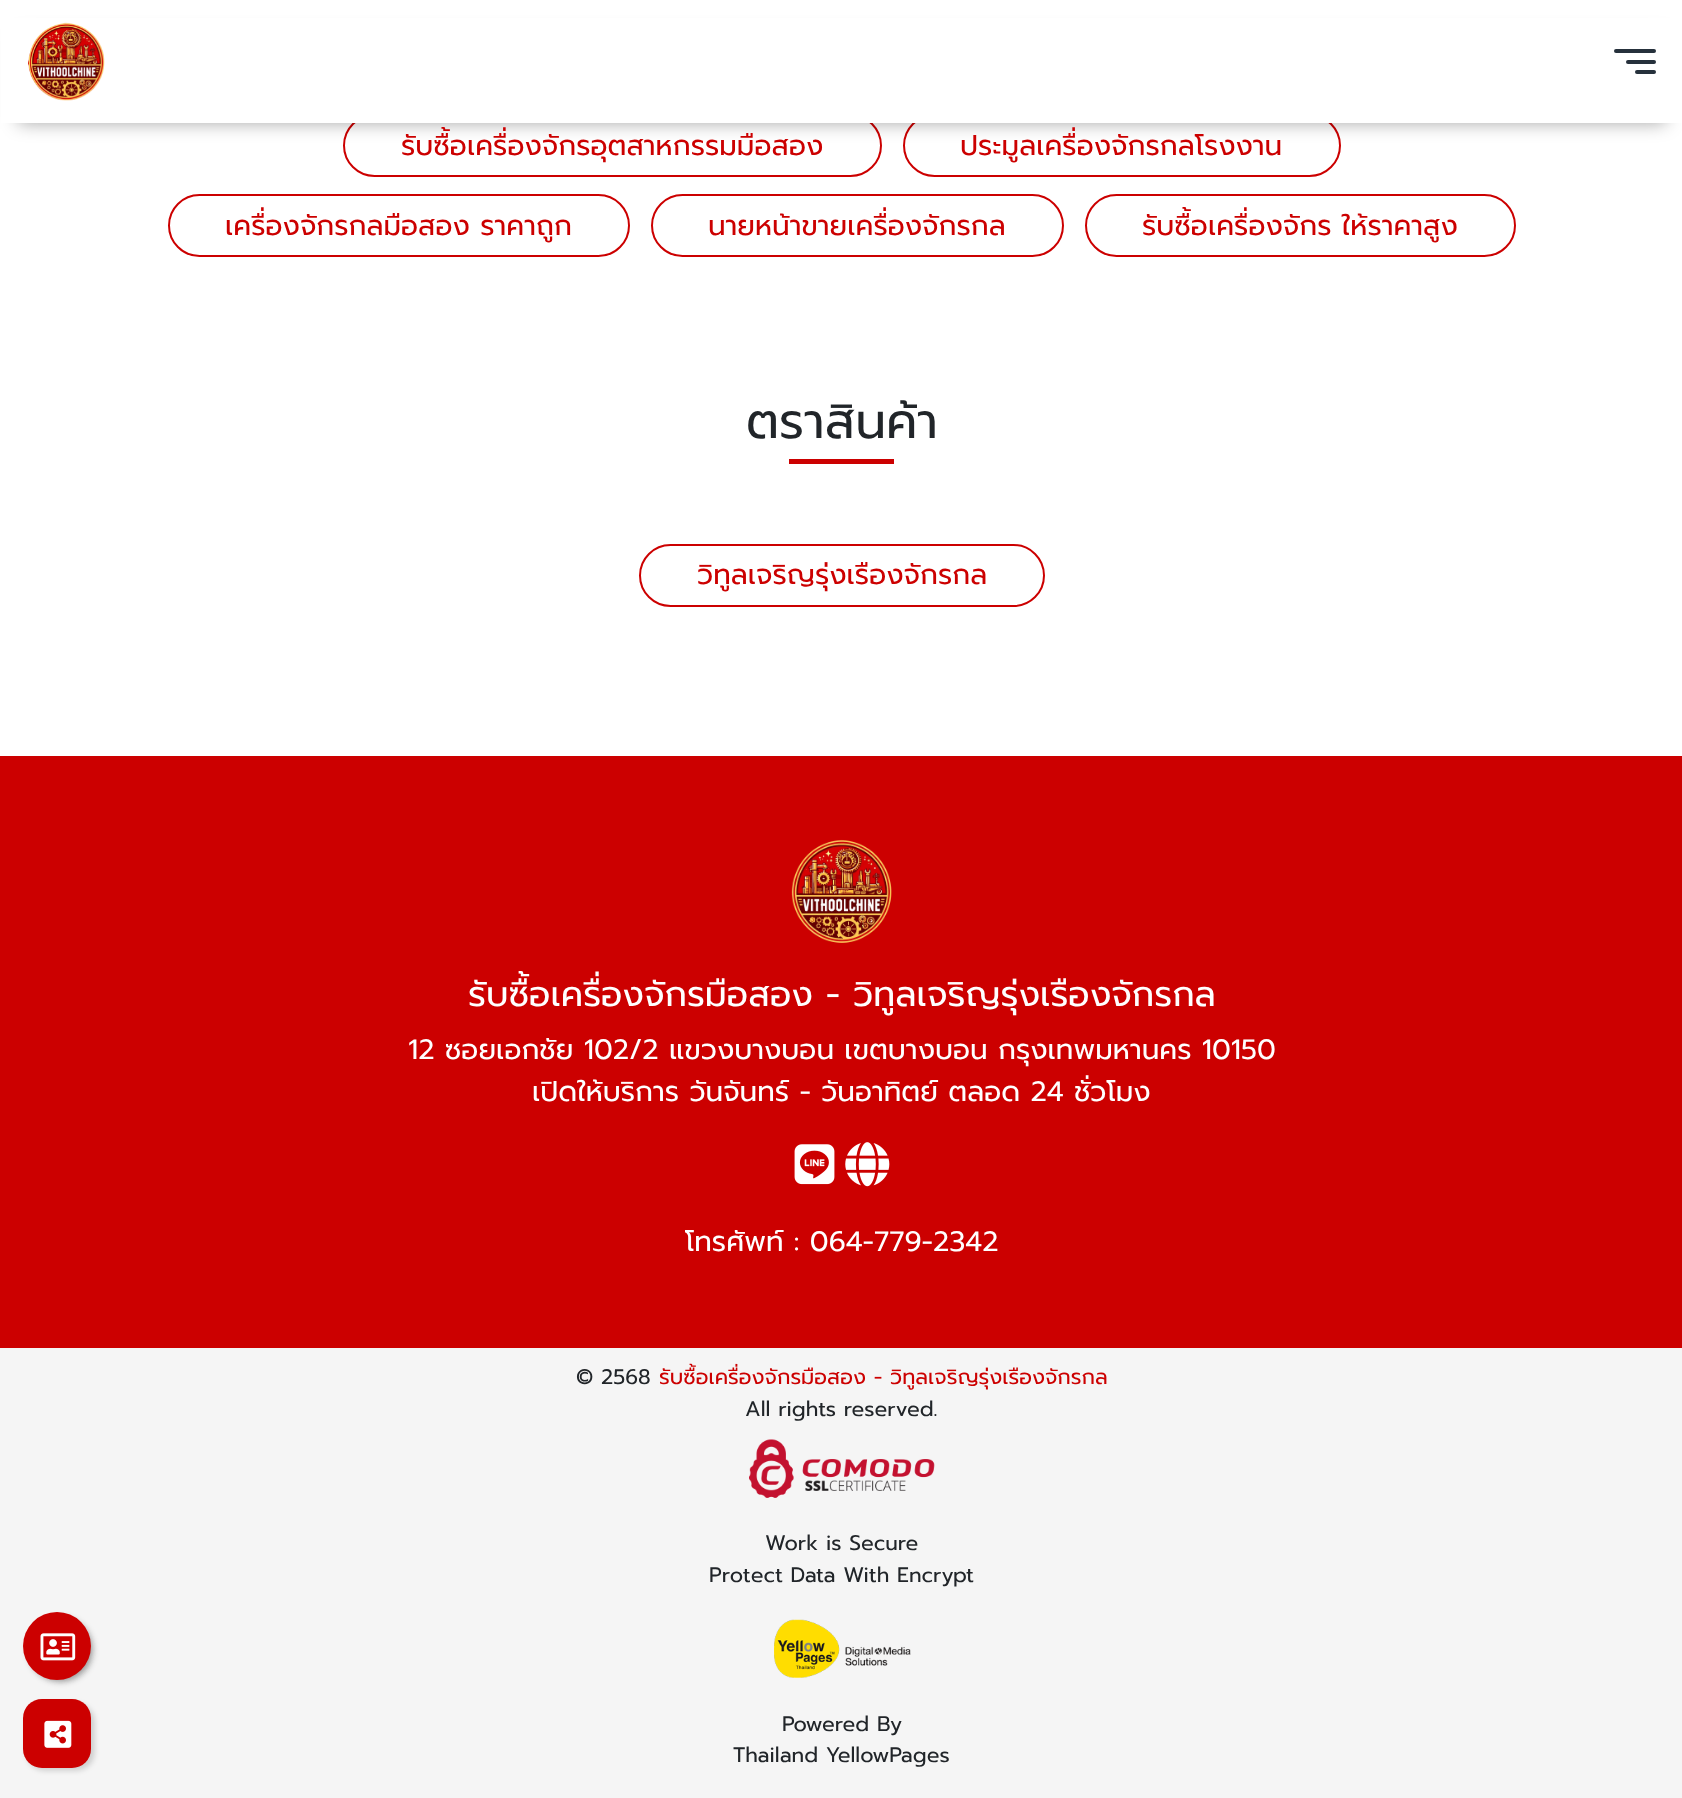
<?xml version="1.0" encoding="UTF-8"?>
<svg xmlns="http://www.w3.org/2000/svg" width="1682" height="1798">
    <defs>
        <filter id="blur1" x="-50%" y="-200%" width="200%" height="500%"><feGaussianBlur stdDeviation="9"/></filter>
        <filter id="blur2" x="-50%" y="-200%" width="200%" height="500%"><feGaussianBlur stdDeviation="2.5"/></filter>
    </defs>
    <rect width="100%" height="100%" fill="#FFFFFF"/>
    <rect x="344" y="115" width="537" height="61" rx="30.5" fill="none" stroke="#CC0000" stroke-width="2"/>
    <rect x="904" y="115" width="436" height="61" rx="30.5" fill="none" stroke="#CC0000" stroke-width="2"/>
    <rect x="18" y="35" width="1648" height="88" fill="#000000" fill-opacity="0.35" filter="url(#blur1)"/>
    <rect x="1" y="18" width="1681" height="105" fill="#FFFFFF"/>
    <image x="28" y="22" width="77" height="79" href="img_01.png"/>
    <rect x="1614" y="49" width="42" height="4" rx="2" fill="#26313C"/>
    <rect x="1626" y="60" width="30" height="4" rx="2" fill="#26313C"/>
    <rect x="1635" y="70" width="21" height="4" rx="2" fill="#26313C"/>
    <text x="401" y="155" font-family="Prompt" font-size="28" fill="#CC0000">รับซื้อเครื่องจักรอุตสาหกรรมมือสอง</text>
    <text x="960" y="155" font-family="Prompt" font-size="28" fill="#CC0000">ประมูลเครื่องจักรกลโรงงาน</text>
    <rect x="169" y="195" width="460" height="61" rx="30.5" fill="none" stroke="#CC0000" stroke-width="2"/>
    <text x="225" y="235" font-family="Prompt" font-size="28" fill="#CC0000">เครื่องจักรกลมือสอง ราคาถูก</text>
    <rect x="652" y="195" width="411" height="61" rx="30.5" fill="none" stroke="#CC0000" stroke-width="2"/>
    <text x="708" y="235" font-family="Prompt" font-size="28" fill="#CC0000">นายหน้าขายเครื่องจักรกล</text>
    <rect x="1086" y="195" width="429" height="61" rx="30.5" fill="none" stroke="#CC0000" stroke-width="2"/>
    <text x="1142" y="235" font-family="Prompt" font-size="28" fill="#CC0000">รับซื้อเครื่องจักร ให้ราคาสูง</text>
    <text x="746" y="438" font-family="Prompt" font-size="49" fill="#212529">ตราสินค้า</text>
    <rect x="789" y="459" width="105" height="5" fill="#CC0000"/>
    <rect x="640" y="545" width="404" height="61" rx="30.5" fill="none" stroke="#CC0000" stroke-width="2"/>
    <text x="697" y="584" font-family="Prompt" font-size="28" fill="#CC0000">วิทูลเจริญรุ่งเรืองจักรกล</text>
    <rect x="0" y="1348" width="1682" height="450" fill="#F5F5F5"/>
    <rect x="26" y="1615" width="69" height="69" rx="34.5" fill="#000000" fill-opacity="0.15" filter="url(#blur2)"/>
    <rect x="30" y="1619" width="61" height="61" rx="30.5" fill="#000000" fill-opacity="0.15" filter="url(#blur2)"/>
    <rect x="30" y="1619" width="61" height="61" rx="30.5" fill="#000000" fill-opacity="0.15" filter="url(#blur2)"/>
    <circle cx="57" cy="1646" r="34" fill="#CC0000"/>
    <image x="40" y="1633" width="36" height="28" href="img_02.png"/>
    <rect x="0" y="756" width="1682" height="592" fill="#CC0000"/>
    <image x="791" y="839" width="101" height="104" href="img_03.png"/>
    <text x="468" y="1006" font-family="Prompt" font-size="35" fill="#FFFFFF">รับซื้อเครื่องจักรมือสอง - วิทูลเจริญรุ่งเรืองจักรกล</text>
    <text x="408" y="1059" font-family="Prompt" font-size="28" fill="#FFFFFF">12 ซอยเอกชัย 102/2 แขวงบางบอน เขตบางบอน กรุงเทพมหานคร 10150</text>
    <text x="532" y="1101" font-family="Prompt" font-size="28" fill="#FFFFFF">เปิดให้บริการ วันจันทร์ - วันอาทิตย์ ตลอด 24 ชั่วโมง</text>
    <image x="794" y="1144" width="41" height="41" href="img_04.png"/>
    <image x="845" y="1142" width="45" height="45" href="img_05.png"/>
    <text x="685" y="1251" font-family="Prompt" font-size="28" fill="#FFFFFF">โทรศัพท์ : 064-779-2342</text>
    <text x="576" y="1384" font-family="Prompt" font-size="21" fill="#212529">© 2568</text>
    <text x="659" y="1384" font-family="Prompt" font-size="21" fill="#CC0000">รับซื้อเครื่องจักรมือสอง - วิทูลเจริญรุ่งเรืองจักรกล</text>
    <text x="745" y="1416" font-family="Prompt" font-size="21" fill="#212529">All rights reserved.</text>
    <image x="749" y="1439" width="186" height="59" href="img_06.png"/>
    <text x="765" y="1550" font-family="Prompt" font-size="21" fill="#212529">Work is Secure</text>
    <text x="709" y="1582" font-family="Prompt" font-size="21" fill="#212529">Protect Data With Encrypt</text>
    <image x="774" y="1619" width="137" height="59" href="img_07.png"/>
    <text x="782" y="1731" font-family="Prompt" font-size="21" fill="#212529">Powered By</text>
    <text x="733" y="1762" font-family="Prompt" font-size="21" fill="#212529">Thailand YellowPages</text>
    <rect x="26" y="1703" width="69" height="68" rx="19" fill="#000000" fill-opacity="0.15" filter="url(#blur2)"/>
    <rect x="23" y="1699" width="68" height="69" rx="19" fill="#CC0000"/>
    <image x="44" y="1720" width="28" height="28" href="img_08.png"/>
</svg>
